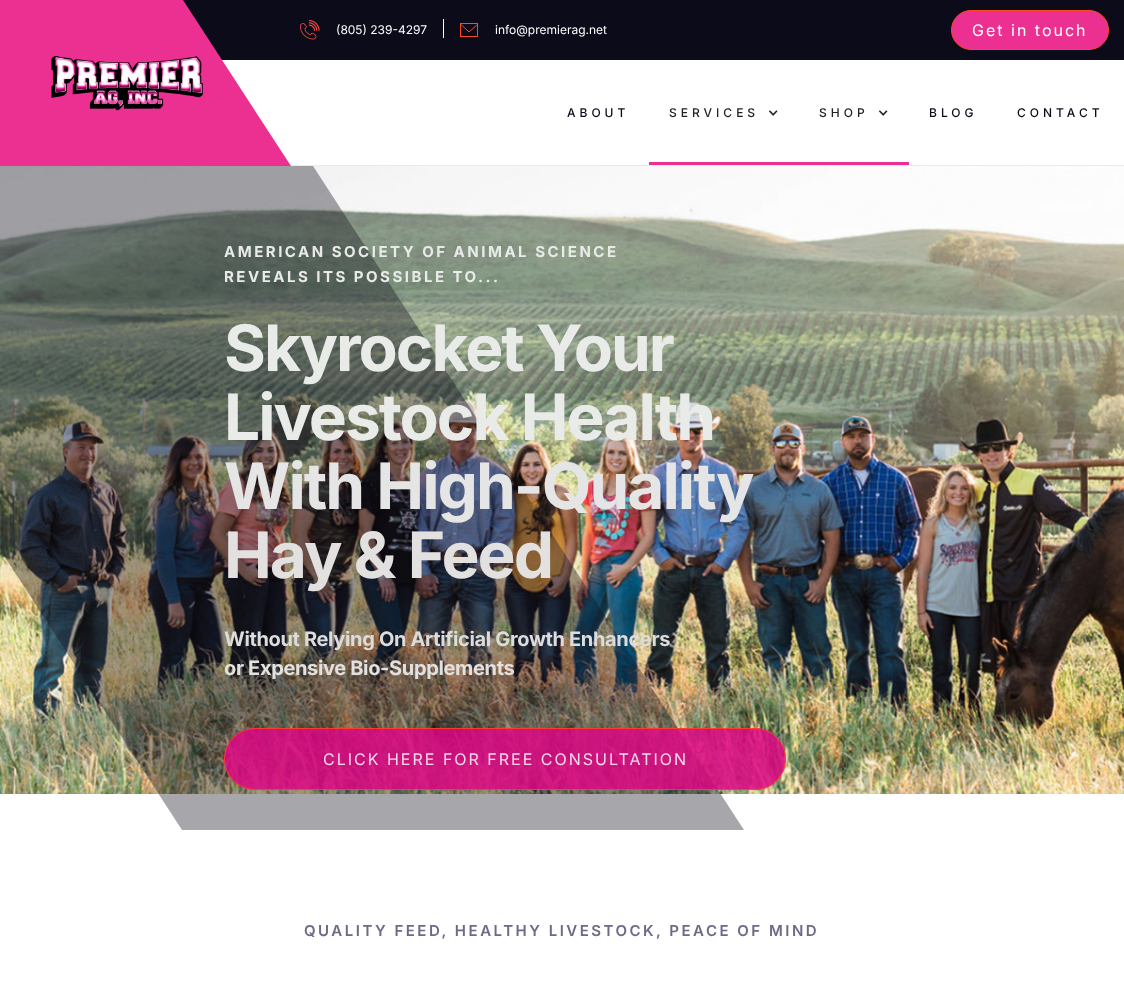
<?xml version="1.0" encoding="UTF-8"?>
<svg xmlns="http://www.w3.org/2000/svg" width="1124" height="989">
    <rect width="100%" height="100%" fill="#FFFFFF"/>
    <rect x="183" y="0" width="941" height="60" fill="#0C0B1A"/>
    <rect x="290" y="165" width="834" height="1" fill="#EAEAEF"/>
    <path d="M -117 0 H 183 L 291 166 H -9 Z" fill="#EB3091"/>
    <image x="51" y="55" width="152" height="56" href="img_01.png"/>
    <image x="300" y="20" width="20" height="20" href="img_02.png"/>
    <text x="336" y="34" font-family="Inter" font-size="12" fill="#FFFFFF">(805) 239-4297</text>
    <rect x="443" y="19" width="1" height="19" fill="#FFFFFF"/>
    <rect x="460.5" y="23.5" width="17" height="13" fill="none" stroke="#FF471D"/>
    <path d="M 460.5 24 L 469 32 L 478 24" fill="none" stroke="#FF471D"/>
    <text x="495" y="34" font-family="Inter" font-size="12" fill="#FFFFFF">info@premierag.net</text>
    <rect x="951.5" y="10.5" width="157" height="39" rx="19.5" fill="#EB3091" stroke="#FF471D"/>
    <text x="972" y="36" font-family="Inter" font-size="16" letter-spacing="2" fill="#FFFFFF">Get in touch</text>
    <text x="567" y="117" font-family="Inter" font-size="12" font-weight="500" letter-spacing="4" fill="#0C0B1A">ABOUT</text>
    <text x="669" y="117" font-family="Inter" font-size="12" font-weight="500" letter-spacing="4" fill="#222222">SERVICES</text>
    <image x="768" y="110" width="10" height="6" href="img_03.png"/>
    <rect x="649" y="162" width="260" height="3" fill="#EB3091"/>
    <text x="819" y="117" font-family="Inter" font-size="12" font-weight="500" letter-spacing="4" fill="#222222">SHOP</text>
    <image x="878" y="110" width="10" height="6" href="img_03.png"/>
    <text x="929" y="117" font-family="Inter" font-size="12" font-weight="500" letter-spacing="4" fill="#0C0B1A">BLOG</text>
    <text x="1017" y="117" font-family="Inter" font-size="12" font-weight="500" letter-spacing="4" fill="#0C0B1A">CONTACT</text>
    <image x="0" y="166" width="1124" height="628" href="img_04.png"/>
    <path d="M -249 166 H 313 L 744 830 H 182 Z" fill="#100E1B" fill-opacity="0.37"/>
    <text font-family="Inter" font-size="15" font-weight="700" letter-spacing="2.5" fill="#E8EBE8">
        <tspan x="224" y="257">AMERICAN SOCIETY OF ANIMAL SCIENCE</tspan>
        <tspan x="224" y="282">REVEALS ITS POSSIBLE TO...</tspan>
    </text>
    <text font-family="Inter" font-size="64" font-weight="700" letter-spacing="-2" fill="#E8EBE8">
        <tspan x="224" y="371">Skyrocket Your</tspan>
        <tspan x="224" y="440">Livestock Health</tspan>
    </text>
    <text x="224" y="509" font-family="Inter" font-size="64" font-weight="700" letter-spacing="-2" fill="#E6E5E6">With High-Quality</text>
    <text x="224" y="578" font-family="Inter" font-size="64" font-weight="700" letter-spacing="-2" fill="#E3E0E0">Hay &amp; Feed</text>
    <text x="224" y="646" font-family="Inter" font-size="20" font-weight="700" letter-spacing="-0.35" fill="#DCDCDD">Without Relying On Artificial Growth Enhancers</text>
    <text x="224" y="675" font-family="Inter" font-size="20" font-weight="700" letter-spacing="-0.35" fill="#E3E0E0">or Expensive Bio-Supplements</text>
    <rect x="224" y="728" width="562" height="62" rx="31" fill="#E00585" fill-opacity="0.84"/>
    <rect x="224.5" y="728.5" width="561" height="61" rx="30.5" fill="none" stroke="#FF471D" stroke-opacity="0.84"/>
    <text x="323" y="765" font-family="Inter" font-size="16" letter-spacing="2" fill="#F7D9EA">CLICK HERE FOR FREE CONSULTATION</text>
    <text x="304" y="936" font-family="Inter" font-size="15" font-weight="600" letter-spacing="2.5" fill="#6C6A86">QUALITY FEED, HEALTHY LIVESTOCK, PEACE OF MIND</text>
</svg>
